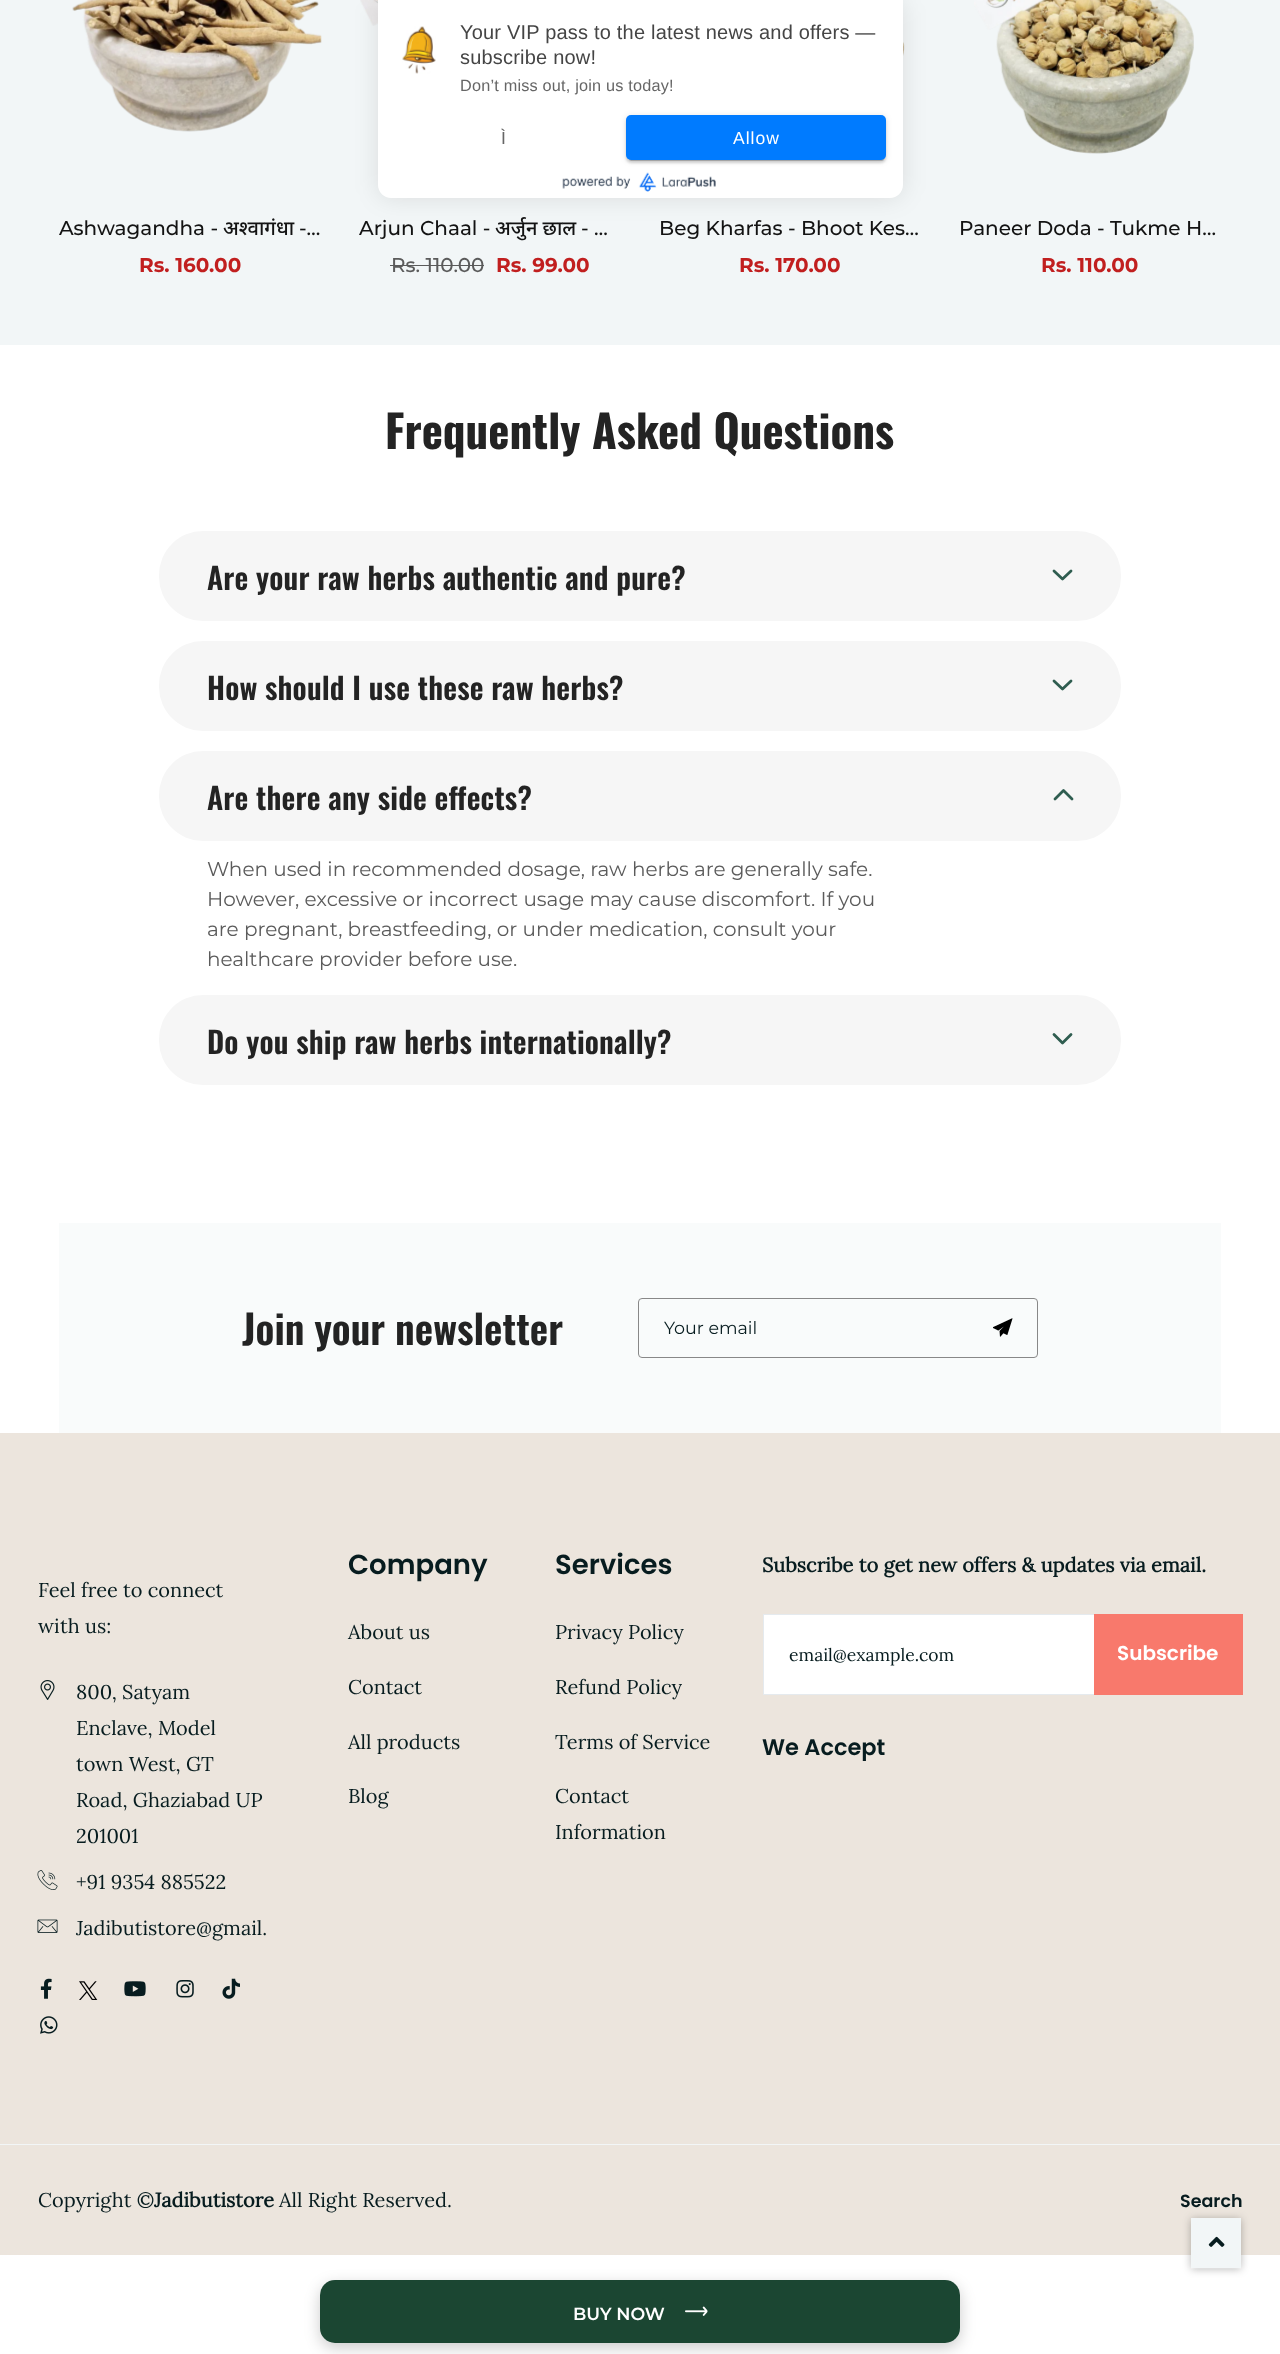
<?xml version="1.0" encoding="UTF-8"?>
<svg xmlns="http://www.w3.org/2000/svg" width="1280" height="2354">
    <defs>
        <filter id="blur1" x="-50%" y="-200%" width="200%" height="500%"><feGaussianBlur stdDeviation="12.5"/></filter>
        <filter id="blur2" x="-50%" y="-200%" width="200%" height="500%"><feGaussianBlur stdDeviation="3"/></filter>
        <filter id="blur3" x="-50%" y="-200%" width="200%" height="500%"><feGaussianBlur stdDeviation="1"/></filter>
        <filter id="blur4" x="-50%" y="-200%" width="200%" height="500%"><feGaussianBlur stdDeviation="0.5"/></filter>
        <filter id="blur5" x="-50%" y="-200%" width="200%" height="500%"><feGaussianBlur stdDeviation="7.5"/></filter>
        <filter id="blur6" x="-50%" y="-200%" width="200%" height="500%"><feGaussianBlur stdDeviation="4"/></filter>
    </defs>
    <rect width="100%" height="100%" fill="#FFFFFF"/>
    <rect x="0" y="0" width="1280" height="345" fill="#F2F6F7"/>
    <image x="360" y="0" width="18" height="26" href="img_04.png"/>
    <image x="903" y="41" width="2" height="15" href="img_05.png"/>
    <rect x="378" y="0" width="525" height="198" rx="13" fill="#000000" fill-opacity="0.1" filter="url(#blur1)"/>
    <path d="M 378 0 H 903 V 185 C 903 192 897 198 890 198 H 391 C 384 198 378 192 378 185 Z" fill="#FFFFFF"/>
    <image x="402" y="26" width="34" height="48" href="img_01.png"/>
    <text font-family="Liberation Sans" font-size="20" letter-spacing="0.2" fill="#454545">
        <tspan x="460" y="39">Your VIP pass to the latest news and offers —</tspan>
        <tspan x="460" y="64">subscribe now!</tspan>
    </text>
    <text x="460" y="91" font-family="Liberation Sans" font-size="16.25" letter-spacing="0.2" fill="#666666">Don’t miss out, join us today!</text>
    <text x="501" y="144" font-family="Liberation Sans" font-size="17.5" letter-spacing="1" fill="#666666">Ì</text>
    <rect x="626" y="116" width="260" height="45" rx="5" fill="#000000" fill-opacity="0.12" filter="url(#blur2)"/>
    <rect x="626" y="118" width="260" height="45" rx="5" fill="#000000" fill-opacity="0.14" filter="url(#blur3)"/>
    <rect x="629" y="121" width="255" height="40" rx="2.5" fill="#000000" fill-opacity="0.2" filter="url(#blur4)"/>
    <rect x="626" y="115" width="260" height="45" rx="5" fill="#007BFF"/>
    <text x="733" y="144" font-family="Liberation Sans" font-size="17.5" letter-spacing="1" fill="#FFFFFF">Allow</text>
    <image x="562" y="172" width="154" height="20" href="img_02.png"/>
    <image x="72" y="0" width="250" height="132" href="img_03.png"/>
    <text x="59" y="235" font-family="Montserrat" font-size="20" font-weight="500" fill="#131313">Ashwagandha -</text>
    <text x="223" y="235" font-family="Noto Sans" font-size="20" font-weight="500" fill="#131313">अश्वागंधा</text>
    <text x="299" y="235" font-family="Montserrat" font-size="20" font-weight="500" fill="#131313">-…</text>
    <text x="139" y="272" font-family="Montserrat" font-size="20" font-weight="700" fill="#C11F1F">Rs. 160.00</text>
    <text x="359" y="235" font-family="Montserrat" font-size="20" font-weight="500" fill="#131313">Arjun Chaal -</text>
    <text x="495" y="235" font-family="Noto Sans" font-size="20" font-weight="500" fill="#131313">अर्जुन छाल</text>
    <text x="581" y="235" font-family="Montserrat" font-size="20" font-weight="500" fill="#131313">- …</text>
    <text x="391" y="272" font-family="Montserrat" font-size="20" font-weight="500" fill="#5B5B5B">Rs. 110.00</text>
    <rect x="390" y="265" width="94" height="1" fill="#5A5A5A"/>
    <text x="496" y="272" font-family="Montserrat" font-size="20" font-weight="700" fill="#C11F1F">Rs. 99.00</text>
    <text x="659" y="235" font-family="Montserrat" font-size="20" font-weight="500" fill="#131313">Beg Kharfas - Bhoot Kes…</text>
    <text x="739" y="272" font-family="Montserrat" font-size="20" font-weight="700" fill="#C11F1F">Rs. 170.00</text>
    <image x="974" y="0" width="220" height="154" href="img_06.png"/>
    <text x="959" y="235" font-family="Montserrat" font-size="20" font-weight="500" fill="#131313">Paneer Doda - Tukme H…</text>
    <text x="1041" y="272" font-family="Montserrat" font-size="20" font-weight="700" fill="#C11F1F">Rs. 110.00</text>
    <text x="385" y="449" font-family="Oswald" font-size="45" font-weight="700" fill="#232323">Frequently Asked Questions</text>
    <rect x="159" y="531" width="962" height="90" rx="44" fill="#F6F6F6"/>
    <text x="207" y="590" font-family="Oswald" font-size="30" font-weight="600" letter-spacing="0.15" fill="#232323">Are your raw herbs authentic and pure?</text>
    <path d="M 1054 571 L 1062.5 579 L 1071 571" fill="none" stroke="#2F5D50" stroke-width="2.8" stroke-linecap="round" stroke-linejoin="round"/>
    <rect x="159" y="641" width="962" height="90" rx="44" fill="#F6F6F6"/>
    <text x="207" y="700" font-family="Oswald" font-size="30" font-weight="600" letter-spacing="0.15" fill="#232323">How should I use these raw herbs?</text>
    <path d="M 1054 681 L 1062.5 689 L 1071 681" fill="none" stroke="#2F5D50" stroke-width="2.8" stroke-linecap="round" stroke-linejoin="round"/>
    <rect x="159" y="751" width="962" height="90" rx="44" fill="#F6F6F6"/>
    <text x="207" y="810" font-family="Oswald" font-size="30" font-weight="600" letter-spacing="0.15" fill="#232323">Are there any side effects?</text>
    <path d="M 1072 799 L 1063.5 790.5 L 1055 799" fill="none" stroke="#2F5D50" stroke-width="2.8" stroke-linecap="round" stroke-linejoin="round"/>
    <text font-family="Montserrat" font-size="20" fill="#5B5B5B">
        <tspan x="207" y="876">When used in recommended dosage, raw herbs are generally safe.</tspan>
        <tspan x="207" y="906">However, excessive or incorrect usage may cause discomfort. If you</tspan>
        <tspan x="207" y="936">are pregnant, breastfeeding, or under medication, consult your</tspan>
        <tspan x="207" y="966">healthcare provider before use.</tspan>
    </text>
    <rect x="159" y="995" width="962" height="90" rx="44" fill="#F6F6F6"/>
    <text x="207" y="1054" font-family="Oswald" font-size="30" font-weight="600" letter-spacing="0.15" fill="#232323">Do you ship raw herbs internationally?</text>
    <path d="M 1054 1034.5 L 1062.5 1043 L 1071 1034.5" fill="none" stroke="#2F5D50" stroke-width="2.8" stroke-linecap="round" stroke-linejoin="round"/>
    <rect x="59" y="1223" width="1162" height="210" fill="#F9FBFB"/>
    <text x="242" y="1345" font-family="Oswald" font-size="40" font-weight="600" fill="#232323">Join your newsletter</text>
    <rect x="638.5" y="1298.5" width="399" height="59" rx="3.5" fill="none" stroke="#888888"/>
    <text x="664" y="1334" font-family="Montserrat" font-size="17.5" fill="#071C1F">Your email</text>
    <image x="993" y="1318" width="20" height="19" href="img_07.png"/>
    <rect x="320" y="2285" width="640" height="63" rx="15" fill="#000000" fill-opacity="0.2" filter="url(#blur5)"/>
    <rect x="320" y="2280" width="640" height="63" rx="15" fill="#1B4632"/>
    <text x="573" y="2320" font-family="Montserrat" font-size="17.5" font-weight="600" fill="#FFFFFF">BUY NOW</text>
    <image x="685" y="2306" width="23" height="10" href="img_08.png"/>
    <rect x="0" y="1433" width="1280" height="711" fill="#ECE5DD"/>
    <text font-family="Lora" font-size="20" fill="#071C1F">
        <tspan x="38" y="1597">Feel free to connect</tspan>
        <tspan x="38" y="1633">with us:</tspan>
    </text>
    <image x="40" y="1680" width="15" height="20" href="img_09.png"/>
    <text font-family="Lora" font-size="20" fill="#071C1F">
        <tspan x="76" y="1699">800, Satyam</tspan>
        <tspan x="76" y="1735">Enclave, Model</tspan>
        <tspan x="76" y="1771">town West, GT</tspan>
        <tspan x="76" y="1807">Road, Ghaziabad UP</tspan>
        <tspan x="76" y="1843">201001</tspan>
    </text>
    <image x="37" y="1870" width="21" height="20" href="img_10.png"/>
    <text x="76" y="1889" font-family="Lora" font-size="20" fill="#071C1F">+91 9354 885522</text>
    <image x="37" y="1919" width="21" height="14" href="img_11.png"/>
    <text x="76" y="1935" font-family="Lora" font-size="20" fill="#071C1F">Jadibutistore@gmail.</text>
    <image x="40" y="1978" width="12" height="21" href="img_12.png"/>
    <image x="79" y="1981" width="19" height="19" href="img_13.png"/>
    <image x="124" y="1981" width="22" height="16" href="img_14.png"/>
    <image x="176" y="1980" width="18" height="18" href="img_15.png"/>
    <image x="222" y="1978" width="18" height="21" href="img_16.png"/>
    <image x="40" y="2016" width="18" height="18" href="img_17.png"/>
    <text x="348" y="1574" font-family="Poppins" font-size="27.5" font-weight="600" fill="#071C1F">Company</text>
    <text x="348" y="1639" font-family="Lora" font-size="20" fill="#071C1F">About us</text>
    <text x="348" y="1694" font-family="Lora" font-size="20" fill="#071C1F">Contact</text>
    <text x="348" y="1749" font-family="Lora" font-size="20" fill="#071C1F">All products</text>
    <text x="348" y="1803" font-family="Lora" font-size="20" fill="#071C1F">Blog</text>
    <text x="555" y="1574" font-family="Poppins" font-size="27.5" font-weight="600" fill="#071C1F">Services</text>
    <text x="555" y="1639" font-family="Lora" font-size="20" fill="#071C1F">Privacy Policy</text>
    <text x="555" y="1694" font-family="Lora" font-size="20" fill="#071C1F">Refund Policy</text>
    <text x="555" y="1749" font-family="Lora" font-size="20" fill="#071C1F">Terms of Service</text>
    <text font-family="Lora" font-size="20" fill="#071C1F">
        <tspan x="555" y="1803">Contact</tspan>
        <tspan x="555" y="1839">Information</tspan>
    </text>
    <text x="762" y="1572" font-family="Lora" font-size="20" font-weight="700" fill="#071C1F">Subscribe to get new offers &amp; updates via email.</text>
    <rect x="764" y="1615" width="330" height="79" fill="#FFFFFF"/>
    <rect x="763.5" y="1614.5" width="479" height="80" fill="none" stroke="#E5EAEE"/>
    <text x="789" y="1661" font-family="Lora" font-size="17.5" fill="#071C1F">email@example.com</text>
    <rect x="1094" y="1614" width="149" height="81" fill="#F8796C"/>
    <text x="1117" y="1660" font-family="Poppins" font-size="20" font-weight="600" fill="#FFFFFF">Subscribe</text>
    <text x="762" y="1755" font-family="Poppins" font-size="22.5" font-weight="600" fill="#071C1F">We Accept</text>
    <rect x="0" y="2145" width="1280" height="110" fill="#ECE5DD"/>
    <rect x="0" y="2144" width="1280" height="1" fill="#F2F6F7"/>
    <text x="38" y="2207" font-family="Lora" font-size="20" fill="#071C1F">Copyright ©</text>
    <text x="154" y="2207" font-family="Lora" font-size="20" font-weight="700" fill="#071C1F">Jadibutistore</text>
    <text x="279" y="2207" font-family="Lora" font-size="20" fill="#071C1F">All Right Reserved.</text>
    <text x="1180" y="2207" font-family="Poppins" font-size="17.5" font-weight="600" fill="#071C1F">Search</text>
    <rect x="1191" y="2219" width="50" height="50" fill="#202124" fill-opacity="0.28" filter="url(#blur6)"/>
    <rect x="1191" y="2218" width="50" height="50" fill="#F2F6F7"/>
    <image x="1208" y="2236" width="17" height="11" href="img_18.png"/>
</svg>
